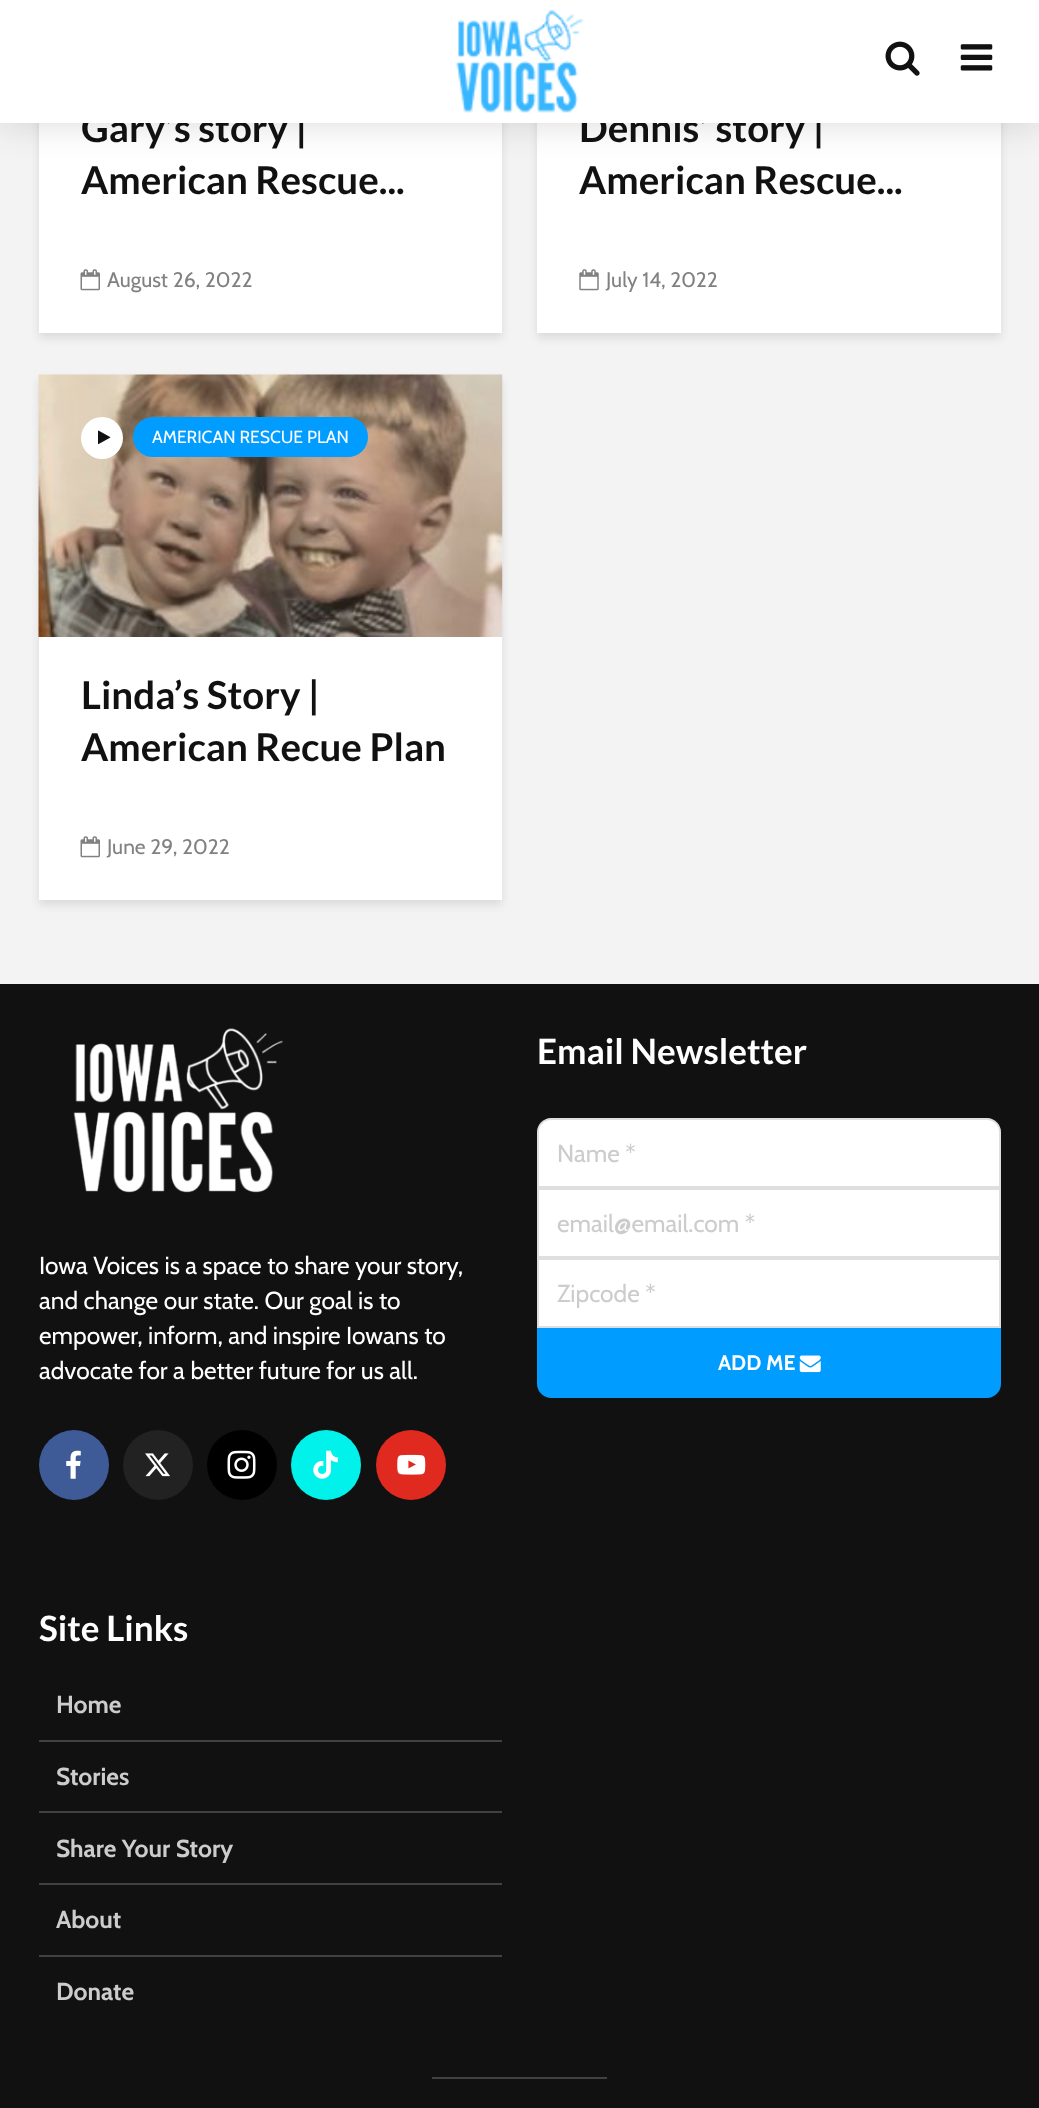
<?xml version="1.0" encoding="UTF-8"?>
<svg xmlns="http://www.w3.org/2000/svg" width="1039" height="2108">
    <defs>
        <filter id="blur1" x="-50%" y="-200%" width="200%" height="500%"><feGaussianBlur stdDeviation="4.5"/></filter>
        <filter id="blur2" x="-50%" y="-200%" width="200%" height="500%"><feGaussianBlur stdDeviation="17.5"/></filter>
    </defs>
    <rect width="100%" height="100%" fill="#F3F3F3"/>
    <rect x="39" y="-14" width="463" height="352" fill="#000101" fill-opacity="0.1" filter="url(#blur1)"/>
    <rect x="39" y="123" width="463" height="210" fill="#FFFFFF"/>
    <rect x="537" y="-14" width="464" height="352" fill="#000101" fill-opacity="0.1" filter="url(#blur1)"/>
    <rect x="537" y="123" width="464" height="210" fill="#FFFFFF"/>
    <rect x="0" y="0" width="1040" height="123" fill="#000000" fill-opacity="0.15" filter="url(#blur2)"/>
    <text x="81" y="142" font-family="Lato" font-size="38.5" font-weight="700" fill="#111111">Gary’s story |</text>
    <text x="579" y="142" font-family="Lato" font-size="38.5" font-weight="700" fill="#111111">Dennis’ story |</text>
    <rect x="0" y="0" width="1039" height="123" fill="#FFFFFF"/>
    <image x="456" y="10" width="128" height="103" href="img_01.png"/>
    <image x="885" y="41" width="35" height="35" href="img_02.png"/>
    <image x="960" y="44" width="33" height="27" href="img_03.png"/>
    <text x="81" y="194" font-family="Lato" font-size="38.5" font-weight="700" fill="#111111">American Rescue...</text>
    <image x="80" y="269" width="20" height="22" href="img_04.png"/>
    <text x="107" y="287" font-family="Cabin" font-size="21" fill="#818181">August 26, 2022</text>
    <text x="579" y="194" font-family="Lato" font-size="38.5" font-weight="700" fill="#111111">American Rescue...</text>
    <image x="579" y="269" width="20" height="22" href="img_05.png"/>
    <text x="606" y="287" font-family="Cabin" font-size="21" fill="#818181">July 14, 2022</text>
    <rect x="39" y="380" width="463" height="525" fill="#000101" fill-opacity="0.1" filter="url(#blur1)"/>
    <rect x="39" y="637" width="463" height="263" fill="#FFFFFF"/>
    <image x="38" y="374" width="465" height="263" href="img_06.png"/>
    <circle cx="102" cy="438" r="21" fill="#FFFFFF"/>
    <image x="98" y="430" width="13" height="15" href="img_07.png"/>
    <rect x="133" y="417" width="235" height="40" rx="20" fill="#009CFF"/>
    <text x="152" y="443" font-family="Cabin" font-size="17.5" fill="#FFFFFF">AMERICAN RESCUE PLAN</text>
    <text font-family="Lato" font-size="38.5" font-weight="700" fill="#111111">
        <tspan x="81" y="709">Linda’s Story |</tspan>
        <tspan x="81" y="761">American Recue Plan</tspan>
    </text>
    <image x="80" y="836" width="20" height="22" href="img_04.png"/>
    <text x="107" y="854" font-family="Cabin" font-size="21" fill="#818181">June 29, 2022</text>
    <rect x="0" y="984" width="1039" height="1124" fill="#111111"/>
    <image x="73" y="1028" width="210" height="165" href="img_08.png"/>
    <text font-family="Cabin" font-size="24.5" fill="#FFFFFF">
        <tspan x="39" y="1274">Iowa Voices is a space to share your story,</tspan>
        <tspan x="39" y="1309">and change our state. Our goal is to</tspan>
        <tspan x="39" y="1344">empower, inform, and inspire Iowans to</tspan>
        <tspan x="39" y="1379">advocate for a better future for us all.</tspan>
    </text>
    <circle cx="74" cy="1465" r="35" fill="#3E5B98"/>
    <image x="66" y="1450" width="15" height="29" href="img_09.png"/>
    <circle cx="158" cy="1465" r="35" fill="#222222"/>
    <image x="145" y="1453" width="25" height="24" href="img_10.png"/>
    <circle cx="242" cy="1465" r="35" fill="#000000"/>
    <image x="227" y="1450" width="29" height="29" href="img_11.png"/>
    <circle cx="326" cy="1465" r="35" fill="#00F2EA"/>
    <image x="313" y="1450" width="25" height="29" href="img_12.png"/>
    <circle cx="411" cy="1465" r="35" fill="#E02A20"/>
    <image x="397" y="1454" width="29" height="21" href="img_13.png"/>
    <text x="537" y="1064" font-family="Lato" font-size="35" font-weight="700" fill="#FFFFFF">Email Newsletter</text>
    <path d="M 551 1118 H 987 C 994.5 1118 1001 1124.5 1001 1132 V 1188 H 537 V 1132 C 537 1124.5 543.5 1118 551 1118 Z" fill="#FFFFFF"/>
    <path d="M 551 1119 H 987 C 994 1119 1000 1125 1000 1132 V 1187 H 538 V 1132 C 538 1125 544 1119 551 1119 Z" fill="none" stroke="#5E5E5E" stroke-opacity="0.2" stroke-width="2"/>
    <text x="557" y="1162" font-family="Cabin" font-size="24.5" fill="#CCCCCC">Name *</text>
    <rect x="538" y="1189" width="462" height="68" fill="#FFFFFF" stroke="#DFDFDF" stroke-width="2"/>
    <text x="557" y="1232" font-family="Cabin" font-size="24.5" fill="#CCCCCC">email@email.com *</text>
    <rect x="538" y="1259" width="462" height="68" fill="#FFFFFF" stroke="#DFDFDF" stroke-width="2"/>
    <text x="557" y="1302" font-family="Cabin" font-size="24.5" fill="#CCCCCC">Zipcode *</text>
    <path d="M 537 1328 H 1001 V 1384 C 1001 1391.5 994.5 1398 987 1398 H 551 C 543.5 1398 537 1391.5 537 1384 Z" fill="#009CFF"/>
    <text x="718" y="1370" font-family="Cabin" font-size="21" font-weight="700" fill="#FFFFFF">ADD ME</text>
    <image x="799" y="1355" width="22" height="18" href="img_14.png"/>
    <text x="39" y="1641" font-family="Lato" font-size="35" font-weight="700" fill="#FFFFFF">Site Links</text>
    <rect x="39" y="1740" width="463" height="2" fill="#414141"/>
    <text x="56" y="1713" font-family="Cabin" font-size="24.5" font-weight="700" fill="#CCCCCC">Home</text>
    <rect x="39" y="1811" width="463" height="2" fill="#414141"/>
    <text x="56" y="1785" font-family="Cabin" font-size="24.5" font-weight="700" fill="#CCCCCC">Stories</text>
    <rect x="39" y="1883" width="463" height="2" fill="#414141"/>
    <text x="56" y="1857" font-family="Cabin" font-size="24.5" font-weight="700" fill="#CCCCCC">Share Your Story</text>
    <rect x="39" y="1955" width="463" height="2" fill="#414141"/>
    <text x="56" y="1928" font-family="Cabin" font-size="24.5" font-weight="700" fill="#CCCCCC">About</text>
    <text x="56" y="2000" font-family="Cabin" font-size="24.5" font-weight="700" fill="#CCCCCC">Donate</text>
    <rect x="432" y="2077" width="175" height="2" fill="#414141"/>
</svg>
